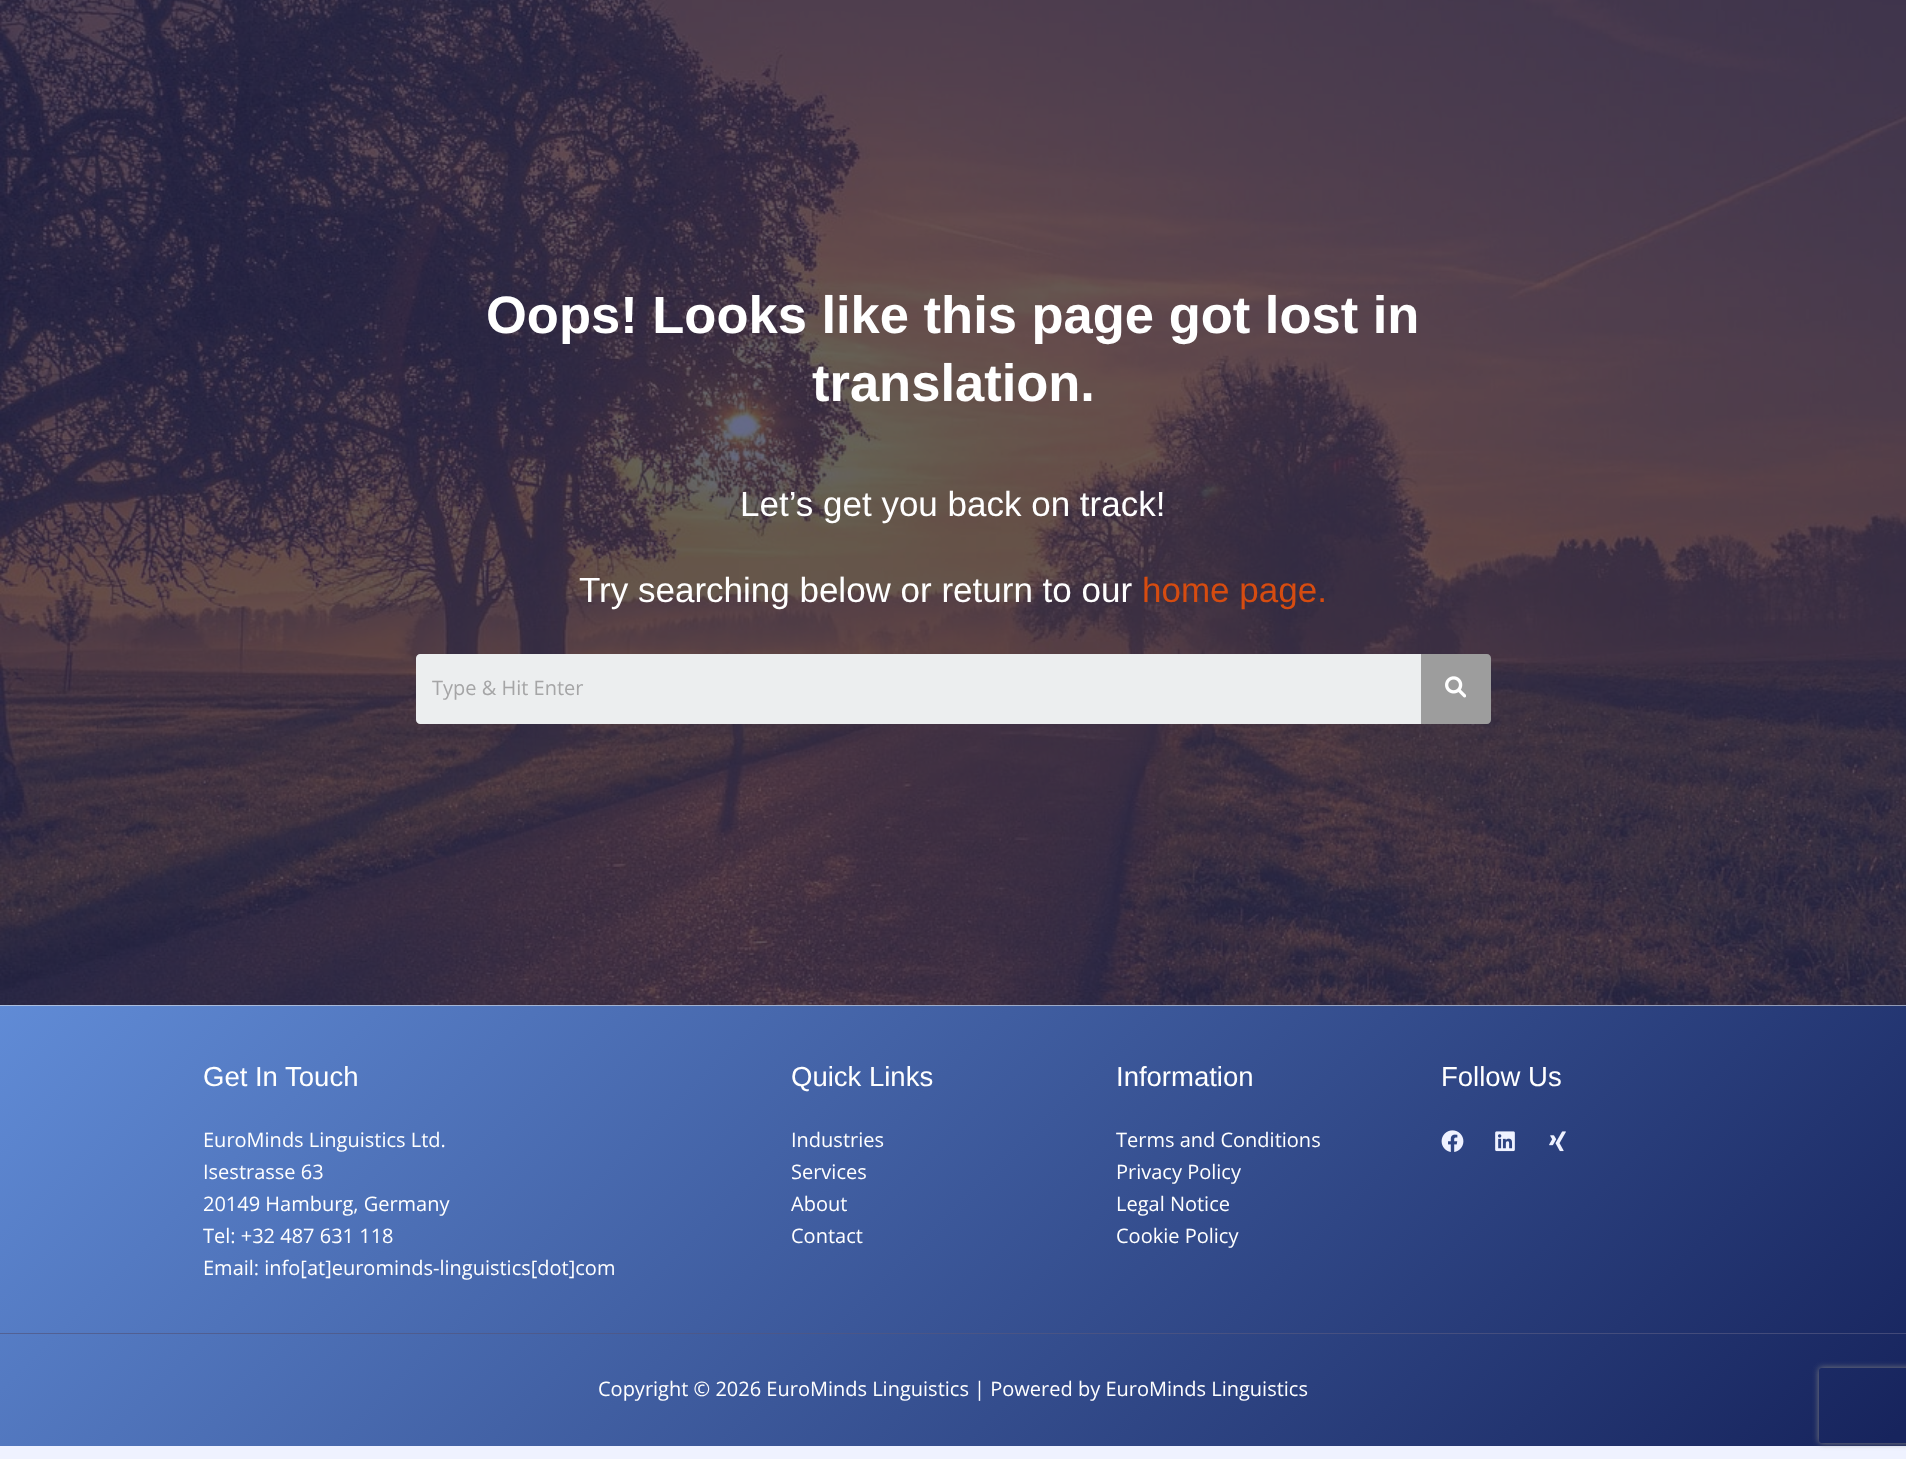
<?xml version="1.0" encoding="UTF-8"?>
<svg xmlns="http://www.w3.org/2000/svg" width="1906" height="1459">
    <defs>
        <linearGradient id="g1" gradientUnits="userSpaceOnUse" x1="366" y1="639" x2="1540" y2="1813"><stop offset="0" stop-color="#608BD6"/><stop offset="0.99" stop-color="#17245D"/></linearGradient>
        <linearGradient id="g2" gradientUnits="userSpaceOnUse" x1="366" y1="639" x2="1540" y2="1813"><stop offset="0" stop-color="#556599"/><stop offset="0.99" stop-color="#414877"/></linearGradient>
        <linearGradient id="g3" gradientUnits="userSpaceOnUse" x1="366" y1="639" x2="1540" y2="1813"><stop offset="0" stop-color="#ACBFDF"/><stop offset="0.99" stop-color="#8D93AB"/></linearGradient>
        <clipPath id="clip1"><path d="M 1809 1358 H 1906 V 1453 H 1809 Z M 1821.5 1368 H 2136.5 C 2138 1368 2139 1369 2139 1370.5 V 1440.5 C 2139 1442 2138 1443 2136.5 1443 H 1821.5 C 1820 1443 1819 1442 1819 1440.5 V 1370.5 C 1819 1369 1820 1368 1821.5 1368 Z" clip-rule="evenodd"/></clipPath>
        <filter id="blur1" x="-50%" y="-200%" width="200%" height="500%"><feGaussianBlur stdDeviation="3"/></filter>
    </defs>
    <rect width="100%" height="100%" fill="#EFF2FF"/>
    <image x="0" y="0" width="1906" height="1005" href="img_01.png"/>
    <text x="486" y="333" font-family="Liberation Sans" font-size="52.5" font-weight="700" fill="#FFFFFF">Oops! Looks like this page got lost in</text>
    <text x="812" y="401" font-family="Liberation Sans" font-size="52.5" font-weight="700" fill="#FFFFFF">translation.</text>
    <text x="740" y="516" font-family="Liberation Sans" font-size="35" fill="#FFFFFF">Let’s get you back on track!</text>
    <text x="579" y="602" font-family="Liberation Sans" font-size="35" fill="#FFFFFF">Try searching below or return to our</text>
    <text x="1142" y="602" font-family="Liberation Sans" font-size="35" fill="#D64C10">home page.</text>
    <path d="M 420 654 H 1421 V 724 H 420 C 418 724 416 722 416 720 V 658 C 416 656 418 654 420 654 Z" fill="#ECEEEF"/>
    <text x="432" y="695" font-family="Open Sans" font-size="20" fill="#A5A5A6">Type &amp; Hit Enter</text>
    <path d="M 1421 654 H 1487 C 1489 654 1491 656 1491 658 V 720 C 1491 722 1489 724 1487 724 H 1421 Z" fill="#9D9D9D"/>
    <image x="1445" y="676" width="21" height="22" href="img_02.png"/>
    <rect x="0" y="1006" width="1906" height="440" fill="url(#g1)"/>
    <rect x="0" y="1333" width="1906" height="1" fill="url(#g2)"/>
    <rect x="0" y="1005" width="1906" height="1" fill="url(#g3)"/>
    <text x="203" y="1086" font-family="Liberation Sans" font-size="27.5" fill="#FFFFFF">Get In Touch</text>
    <text font-family="Open Sans" font-size="20" fill="#FFFFFF">
        <tspan x="203" y="1147">EuroMinds Linguistics Ltd.</tspan>
        <tspan x="203" y="1179">Isestrasse 63</tspan>
        <tspan x="203" y="1211">20149 Hamburg, Germany</tspan>
        <tspan x="203" y="1243">Tel: +32 487 631 118</tspan>
        <tspan x="203" y="1275">Email: info[at]eurominds-linguistics[dot]com</tspan>
    </text>
    <text x="791" y="1086" font-family="Liberation Sans" font-size="27.5" fill="#FFFFFF">Quick Links</text>
    <text font-family="Open Sans" font-size="20" fill="#FFFFFF">
        <tspan x="791" y="1147">Industries</tspan>
        <tspan x="791" y="1179">Services</tspan>
        <tspan x="791" y="1211">About</tspan>
        <tspan x="791" y="1243">Contact</tspan>
    </text>
    <text x="1116" y="1086" font-family="Liberation Sans" font-size="27.5" fill="#FFFFFF">Information</text>
    <text font-family="Open Sans" font-size="20" fill="#FFFFFF">
        <tspan x="1116" y="1147">Terms and Conditions</tspan>
        <tspan x="1116" y="1179">Privacy Policy</tspan>
        <tspan x="1116" y="1211">Legal Notice</tspan>
        <tspan x="1116" y="1243">Cookie Policy</tspan>
    </text>
    <text x="1441" y="1086" font-family="Liberation Sans" font-size="27.5" fill="#FFFFFF">Follow Us</text>
    <image x="1441" y="1130" width="23" height="22" href="img_03.png"/>
    <image x="1495" y="1131" width="20" height="21" href="img_04.png"/>
    <image x="1549" y="1131" width="17" height="21" href="img_05.png"/>
    <text x="598" y="1396" font-family="Open Sans" font-size="20" fill="#FFFFFF">Copyright © 2026 EuroMinds Linguistics | Powered by EuroMinds Linguistics</text>
    <g clip-path="url(#clip1)">
        <rect x="1819" y="1368" width="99" height="75" rx="2.5" fill="#808080" filter="url(#blur1)"/>
    </g>
</svg>
